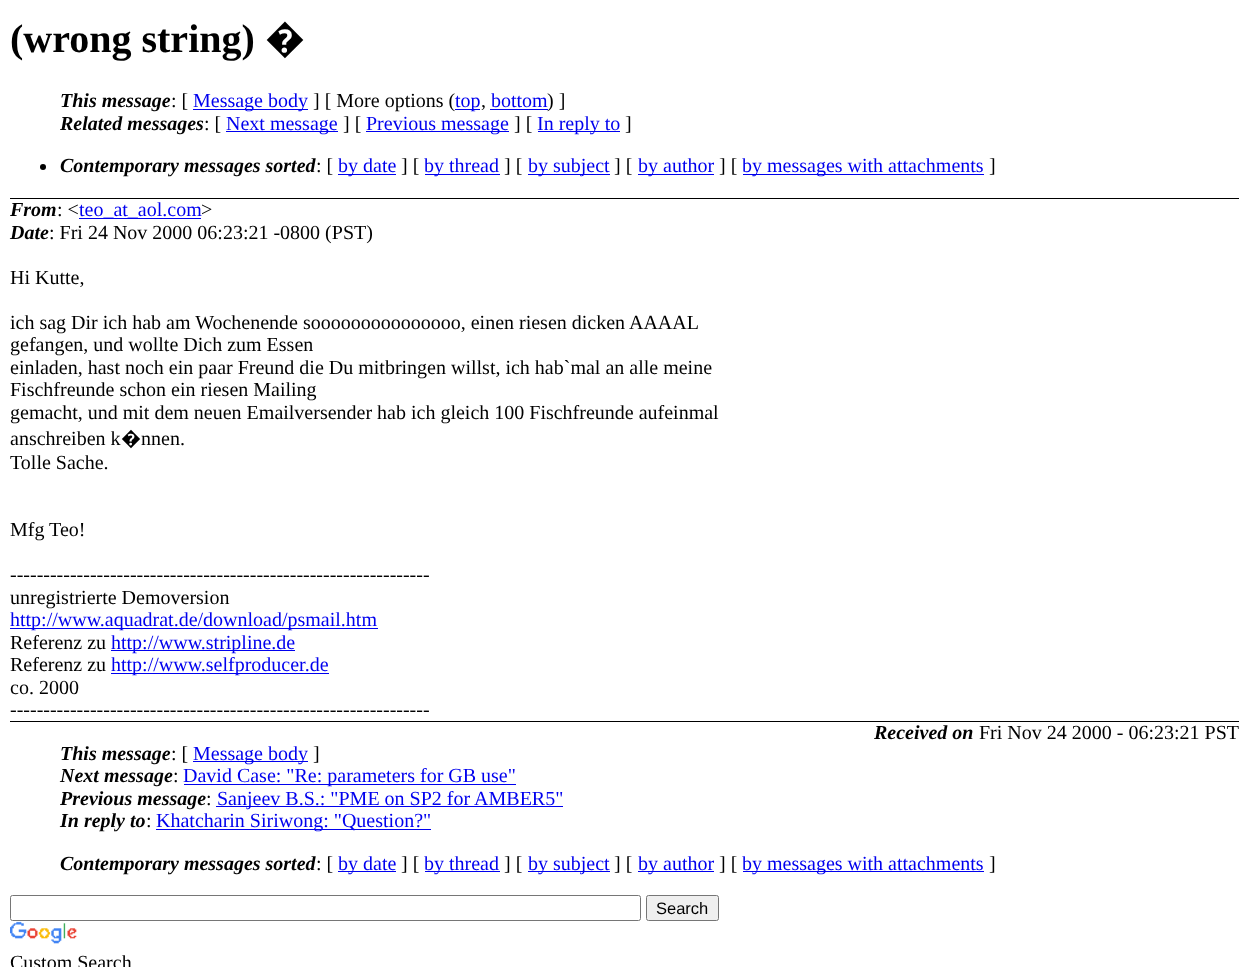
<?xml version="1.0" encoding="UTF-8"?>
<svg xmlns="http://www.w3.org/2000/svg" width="1248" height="967">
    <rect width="100%" height="100%" fill="#FFFFFF"/>
    <rect x="10" y="198" width="1229" height="1" fill="#000000"/>
    <text x="10" y="52" font-family="Liberation Serif" font-size="40" font-weight="700" fill="#000000">(wrong string)</text>
    <text x="265" y="52" font-family="Noto Sans" font-size="40" font-weight="700" fill="#000000">�</text>
    <text x="60" y="107" font-family="Liberation Serif" font-size="20" font-weight="700" font-style="italic" fill="#000000">This message</text>
    <text x="171" y="107" font-family="Liberation Serif" font-size="20" fill="#000000">: [</text>
    <rect x="193" y="109" width="115" height="1" fill="#0000EE"/>
    <text x="193" y="107" font-family="Liberation Serif" font-size="20" fill="#0000EE">Message body</text>
    <text x="313" y="107" font-family="Liberation Serif" font-size="20" fill="#000000">] [ More options (</text>
    <rect x="455" y="109" width="25" height="1" fill="#0000EE"/>
    <text x="455" y="107" font-family="Liberation Serif" font-size="20" fill="#0000EE">top</text>
    <text x="481" y="107" font-family="Liberation Serif" font-size="20" fill="#000000">,</text>
    <text x="491" y="107" font-family="Liberation Serif" font-size="20" fill="#0000EE">bottom</text>
    <rect x="490" y="109" width="58" height="1" fill="#0000EE"/>
    <text x="547" y="107" font-family="Liberation Serif" font-size="20" fill="#000000">) ]</text>
    <text x="60" y="130" font-family="Liberation Serif" font-size="20" font-weight="700" font-style="italic" fill="#000000">Related messages</text>
    <text x="204" y="130" font-family="Liberation Serif" font-size="20" fill="#000000">: [</text>
    <rect x="226" y="131" width="112" height="1" fill="#0000EE"/>
    <text x="226" y="130" font-family="Liberation Serif" font-size="20" fill="#0000EE">Next message</text>
    <text x="343" y="130" font-family="Liberation Serif" font-size="20" fill="#000000">] [</text>
    <rect x="366" y="131" width="143" height="1" fill="#0000EE"/>
    <text x="366" y="130" font-family="Liberation Serif" font-size="20" fill="#0000EE">Previous message</text>
    <text x="514" y="130" font-family="Liberation Serif" font-size="20" fill="#000000">] [</text>
    <rect x="538" y="131" width="82" height="1" fill="#0000EE"/>
    <text x="537" y="130" font-family="Liberation Serif" font-size="20" fill="#0000EE">In reply to</text>
    <text x="625" y="130" font-family="Liberation Serif" font-size="20" fill="#000000">]</text>
    <circle cx="43" cy="167" r="3" fill="#000000"/>
    <text x="60" y="172" font-family="Liberation Serif" font-size="20" font-weight="700" font-style="italic" fill="#000000">Contemporary messages sorted</text>
    <text x="316" y="172" font-family="Liberation Serif" font-size="20" fill="#000000">: [</text>
    <rect x="338" y="174" width="58" height="1" fill="#0000EE"/>
    <text x="338" y="172" font-family="Liberation Serif" font-size="20" fill="#0000EE">by date</text>
    <text x="401" y="172" font-family="Liberation Serif" font-size="20" fill="#000000">] [</text>
    <rect x="425" y="174" width="75" height="1" fill="#0000EE"/>
    <text x="424" y="172" font-family="Liberation Serif" font-size="20" fill="#0000EE">by thread</text>
    <text x="504" y="172" font-family="Liberation Serif" font-size="20" fill="#000000">] [</text>
    <rect x="528" y="174" width="82" height="1" fill="#0000EE"/>
    <text x="528" y="172" font-family="Liberation Serif" font-size="20" fill="#0000EE">by subject</text>
    <text x="614" y="172" font-family="Liberation Serif" font-size="20" fill="#000000">] [</text>
    <rect x="638" y="174" width="76" height="1" fill="#0000EE"/>
    <text x="638" y="172" font-family="Liberation Serif" font-size="20" fill="#0000EE">by author</text>
    <text x="719" y="172" font-family="Liberation Serif" font-size="20" fill="#000000">] [</text>
    <rect x="743" y="174" width="241" height="1" fill="#0000EE"/>
    <text x="742" y="172" font-family="Liberation Serif" font-size="20" fill="#0000EE">by messages with attachments</text>
    <text x="989" y="172" font-family="Liberation Serif" font-size="20" fill="#000000">]</text>
    <text x="10" y="216" font-family="Liberation Serif" font-size="20" font-weight="700" font-style="italic" fill="#000000">From</text>
    <text x="57" y="216" font-family="Liberation Serif" font-size="20" fill="#000000">: &lt;</text>
    <rect x="79" y="218" width="122" height="1" fill="#0000EE"/>
    <text x="79" y="216" font-family="Liberation Serif" font-size="20" fill="#0000EE">teo_at_aol.com</text>
    <text x="201" y="216" font-family="Liberation Serif" font-size="20" fill="#000000">&gt;</text>
    <text x="10" y="239" font-family="Liberation Serif" font-size="20" font-weight="700" font-style="italic" fill="#000000">Date</text>
    <text x="49" y="239" font-family="Liberation Serif" font-size="20" fill="#000000">: Fri 24 Nov 2000 06:23:21 -0800 (PST)</text>
    <text x="10" y="284" font-family="Liberation Serif" font-size="20" fill="#000000">Hi Kutte,</text>
    <text font-family="Liberation Serif" font-size="20" fill="#000000">
        <tspan x="10" y="329">ich sag Dir ich hab am Wochenende sooooooooooooooo, einen riesen dicken AAAAL</tspan>
        <tspan x="10" y="351">gefangen, und wollte Dich zum Essen</tspan>
        <tspan x="10" y="374">einladen, hast noch ein paar Freund die Du mitbringen willst, ich hab`mal an alle meine</tspan>
        <tspan x="10" y="396">Fischfreunde schon ein riesen Mailing</tspan>
        <tspan x="10" y="419">gemacht, und mit dem neuen Emailversender hab ich gleich 100 Fischfreunde aufeinmal</tspan>
        <tspan x="10" y="445">anschreiben k</tspan>
    </text>
    <text x="121" y="445" font-family="Noto Sans" font-size="20" fill="#000000">�</text>
    <text x="141" y="445" font-family="Liberation Serif" font-size="20" fill="#000000">nnen.</text>
    <text x="10" y="469" font-family="Liberation Serif" font-size="20" fill="#000000">Tolle Sache.</text>
    <text x="10" y="536" font-family="Liberation Serif" font-size="20" fill="#000000">Mfg Teo!</text>
    <text font-family="Liberation Serif" font-size="20" fill="#000000">
        <tspan x="10" y="581">---------------------------------------------------------------</tspan>
        <tspan x="10" y="604">unregistrierte Demoversion</tspan>
    </text>
    <rect x="10" y="628" width="368" height="1" fill="#0000EE"/>
    <text x="10" y="626" font-family="Liberation Serif" font-size="20" fill="#0000EE">http://www.aquadrat.de/download/psmail.htm</text>
    <text x="10" y="649" font-family="Liberation Serif" font-size="20" fill="#000000">Referenz zu</text>
    <rect x="111" y="650" width="184" height="1" fill="#0000EE"/>
    <text x="111" y="649" font-family="Liberation Serif" font-size="20" fill="#0000EE">http://www.stripline.de</text>
    <text x="10" y="671" font-family="Liberation Serif" font-size="20" fill="#000000">Referenz zu</text>
    <rect x="111" y="673" width="218" height="1" fill="#0000EE"/>
    <text x="111" y="671" font-family="Liberation Serif" font-size="20" fill="#0000EE">http://www.selfproducer.de</text>
    <text font-family="Liberation Serif" font-size="20" fill="#000000">
        <tspan x="10" y="694">co. 2000</tspan>
        <tspan x="10" y="716">---------------------------------------------------------------</tspan>
    </text>
    <text x="874" y="739" font-family="Liberation Serif" font-size="20" font-weight="700" font-style="italic" fill="#000000">Received on</text>
    <text x="979" y="739" font-family="Liberation Serif" font-size="20" fill="#000000">Fri Nov 24 2000 - 06:23:21 PST</text>
    <rect x="10" y="721" width="1229" height="1" fill="#000000"/>
    <text x="60" y="760" font-family="Liberation Serif" font-size="20" font-weight="700" font-style="italic" fill="#000000">This message</text>
    <text x="171" y="760" font-family="Liberation Serif" font-size="20" fill="#000000">: [</text>
    <rect x="193" y="761" width="115" height="1" fill="#0000EE"/>
    <text x="193" y="760" font-family="Liberation Serif" font-size="20" fill="#0000EE">Message body</text>
    <text x="313" y="760" font-family="Liberation Serif" font-size="20" fill="#000000">]</text>
    <text x="60" y="782" font-family="Liberation Serif" font-size="20" font-weight="700" font-style="italic" fill="#000000">Next message</text>
    <text x="173" y="782" font-family="Liberation Serif" font-size="20" fill="#000000">:</text>
    <rect x="184" y="784" width="332" height="1" fill="#0000EE"/>
    <text x="183" y="782" font-family="Liberation Serif" font-size="20" fill="#0000EE">David Case: "Re: parameters for GB use"</text>
    <text x="60" y="805" font-family="Liberation Serif" font-size="20" font-weight="700" font-style="italic" fill="#000000">Previous message</text>
    <text x="206" y="805" font-family="Liberation Serif" font-size="20" fill="#000000">:</text>
    <rect x="216" y="806" width="347" height="1" fill="#0000EE"/>
    <text x="217" y="805" font-family="Liberation Serif" font-size="20" fill="#0000EE">Sanjeev B.S.: "PME on SP2 for AMBER5"</text>
    <text x="60" y="827" font-family="Liberation Serif" font-size="20" font-weight="700" font-style="italic" fill="#000000">In reply to</text>
    <text x="146" y="827" font-family="Liberation Serif" font-size="20" fill="#000000">:</text>
    <rect x="156" y="829" width="275" height="1" fill="#0000EE"/>
    <text x="156" y="827" font-family="Liberation Serif" font-size="20" fill="#0000EE">Khatcharin Siriwong: "Question?"</text>
    <text x="60" y="870" font-family="Liberation Serif" font-size="20" font-weight="700" font-style="italic" fill="#000000">Contemporary messages sorted</text>
    <text x="316" y="870" font-family="Liberation Serif" font-size="20" fill="#000000">: [</text>
    <rect x="338" y="871" width="58" height="1" fill="#0000EE"/>
    <text x="338" y="870" font-family="Liberation Serif" font-size="20" fill="#0000EE">by date</text>
    <text x="401" y="870" font-family="Liberation Serif" font-size="20" fill="#000000">] [</text>
    <rect x="425" y="871" width="75" height="1" fill="#0000EE"/>
    <text x="424" y="870" font-family="Liberation Serif" font-size="20" fill="#0000EE">by thread</text>
    <text x="504" y="870" font-family="Liberation Serif" font-size="20" fill="#000000">] [</text>
    <rect x="528" y="871" width="82" height="1" fill="#0000EE"/>
    <text x="528" y="870" font-family="Liberation Serif" font-size="20" fill="#0000EE">by subject</text>
    <text x="614" y="870" font-family="Liberation Serif" font-size="20" fill="#000000">] [</text>
    <rect x="638" y="871" width="76" height="1" fill="#0000EE"/>
    <text x="638" y="870" font-family="Liberation Serif" font-size="20" fill="#0000EE">by author</text>
    <text x="719" y="870" font-family="Liberation Serif" font-size="20" fill="#000000">] [</text>
    <rect x="743" y="871" width="241" height="1" fill="#0000EE"/>
    <text x="742" y="870" font-family="Liberation Serif" font-size="20" fill="#0000EE">by messages with attachments</text>
    <text x="989" y="870" font-family="Liberation Serif" font-size="20" fill="#000000">]</text>
    <rect x="10.5" y="895.5" width="630" height="25" rx="2" fill="none" stroke="#767676"/>
    <rect x="646.5" y="895.5" width="72" height="25" rx="2" fill="#EFEFEF" stroke="#767676"/>
    <text x="656" y="914" font-family="Liberation Sans" font-size="16.5" fill="#000000">Search</text>
    <image x="10" y="921" width="67" height="23" href="img_01.png"/>
    <text x="10" y="969" font-family="Liberation Serif" font-size="20" fill="#000000">Custom Search</text>
</svg>
